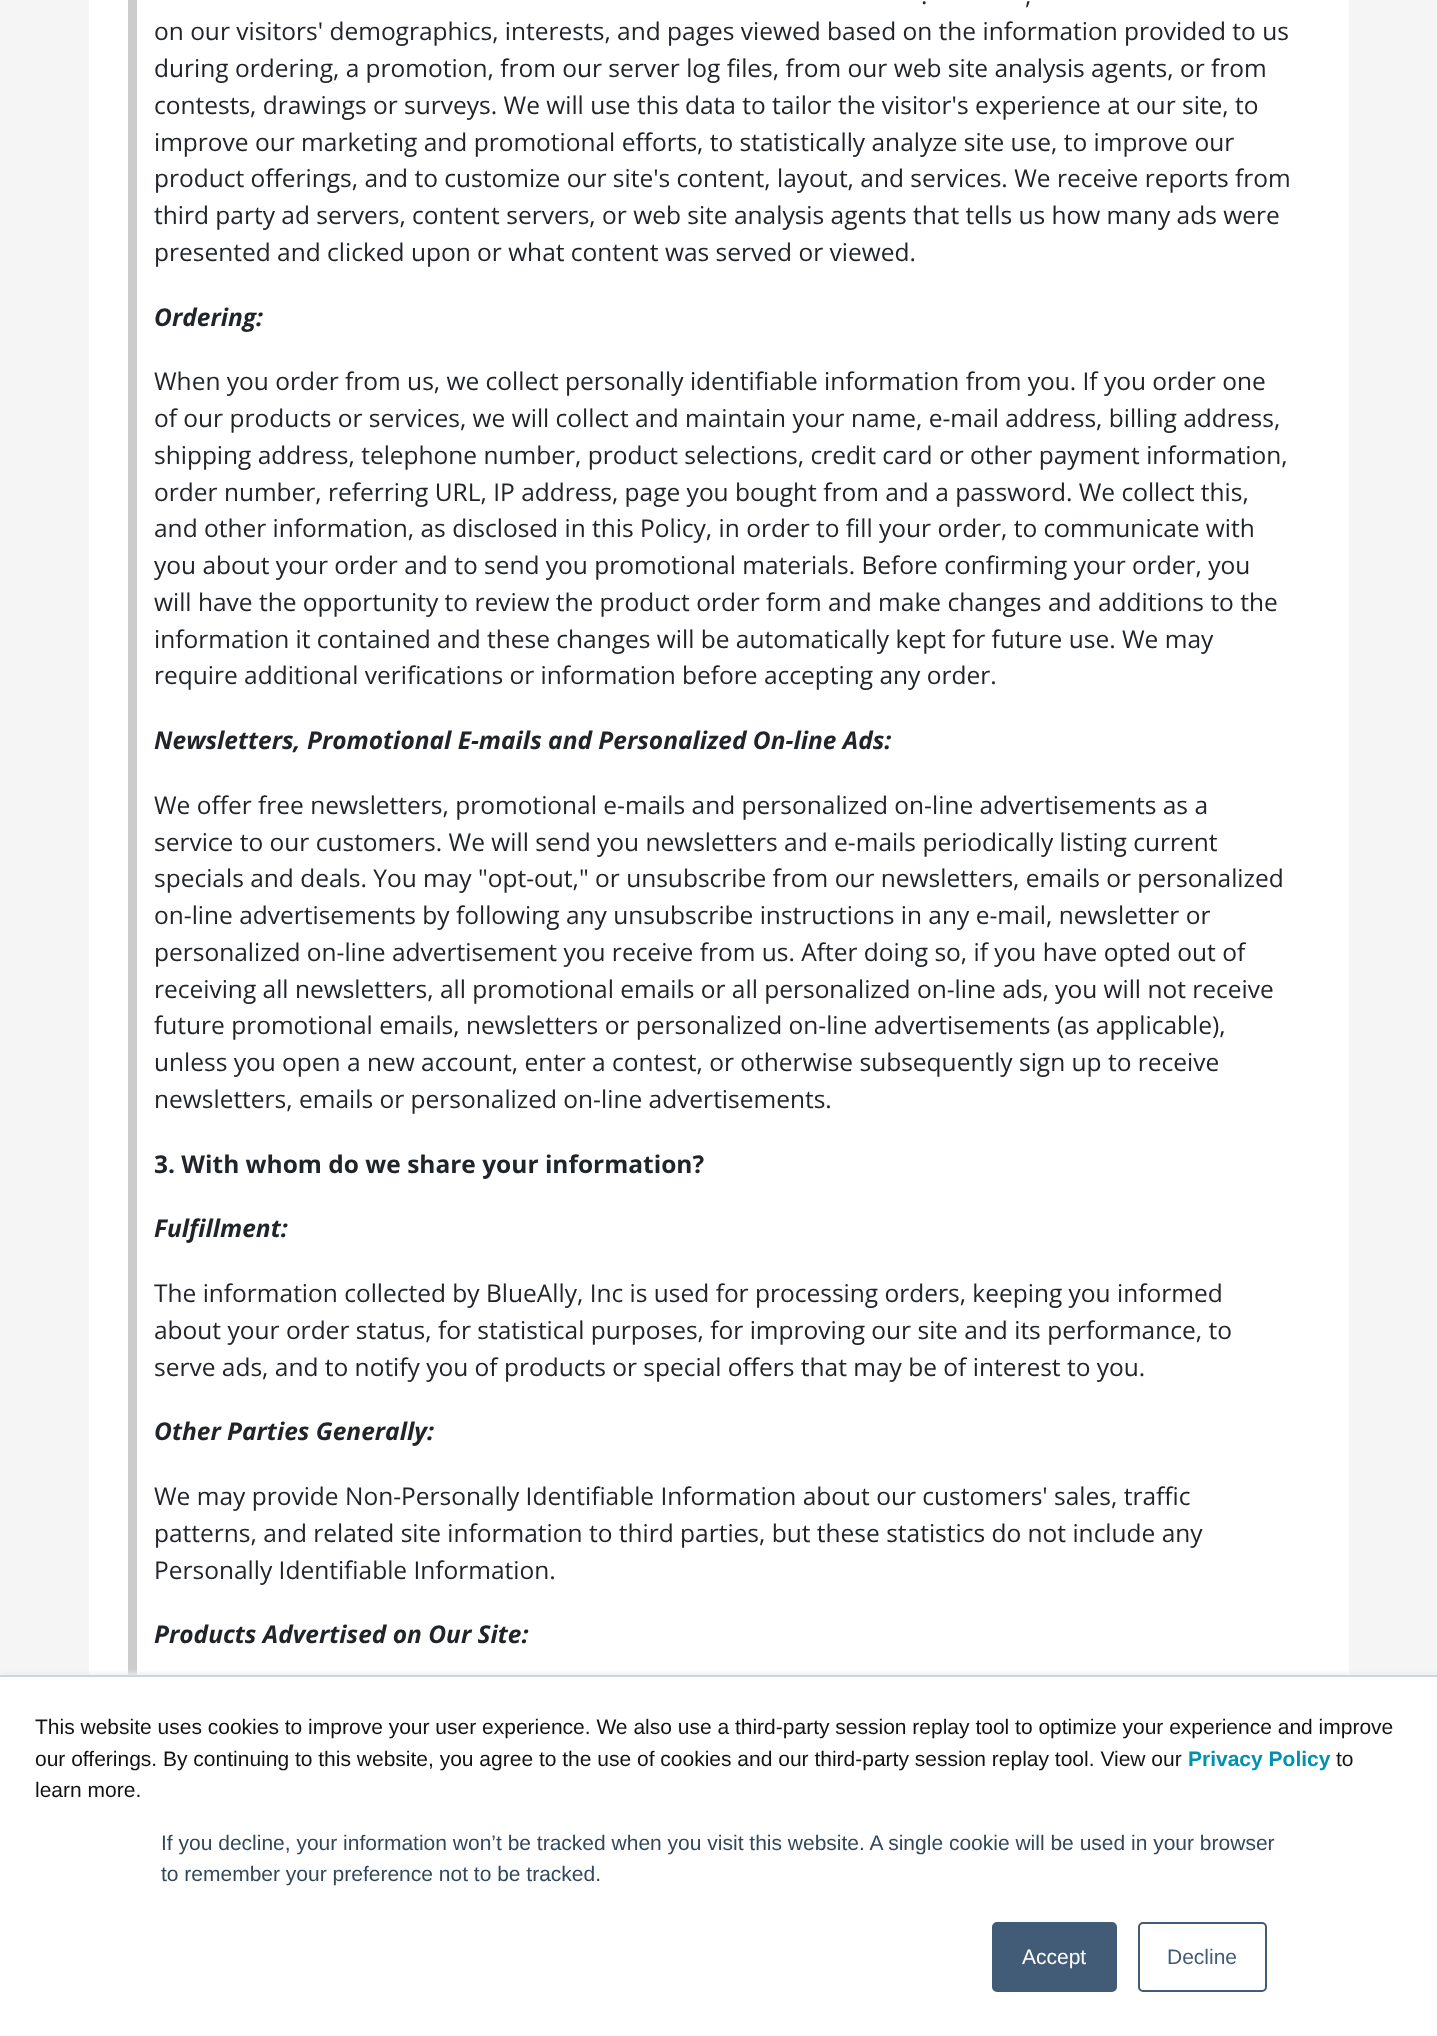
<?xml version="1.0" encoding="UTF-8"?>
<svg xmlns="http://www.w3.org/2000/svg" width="1437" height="2036">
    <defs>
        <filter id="blur1" x="-50%" y="-200%" width="200%" height="500%"><feGaussianBlur stdDeviation="2.5"/></filter>
    </defs>
    <rect width="100%" height="100%" fill="#F5F5F5"/>
    <rect x="89" y="0" width="1260" height="1675" fill="#FFFFFF"/>
    <rect x="128" y="0" width="9" height="1675" fill="#CCCCCC"/>
    <text x="921" y="4" font-family="Open Sans" font-size="24.5" fill="#212529">.</text>
    <text x="1025" y="4" font-family="Open Sans" font-size="24.5" fill="#212529">,</text>
    <text font-family="Open Sans" font-size="24.5" fill="#212529">
        <tspan x="154" y="40">on our visitors' demographics, interests, and pages viewed based on the information provided to us</tspan>
        <tspan x="154" y="77">during ordering, a promotion, from our server log files, from our web site analysis agents, or from</tspan>
        <tspan x="154" y="114">contests, drawings or surveys. We will use this data to tailor the visitor's experience at our site, to</tspan>
        <tspan x="154" y="151">improve our marketing and promotional efforts, to statistically analyze site use, to improve our</tspan>
        <tspan x="154" y="187">product offerings, and to customize our site's content, layout, and services. We receive reports from</tspan>
        <tspan x="154" y="224">third party ad servers, content servers, or web site analysis agents that tells us how many ads were</tspan>
        <tspan x="154" y="261">presented and clicked upon or what content was served or viewed.</tspan>
    </text>
    <text x="154" y="326" font-family="Open Sans" font-size="24.5" font-weight="700" font-style="italic" fill="#212529">Ordering:</text>
    <text font-family="Open Sans" font-size="24.5" fill="#212529">
        <tspan x="154" y="390">When you order from us, we collect personally identifiable information from you. If you order one</tspan>
        <tspan x="154" y="427">of our products or services, we will collect and maintain your name, e-mail address, billing address,</tspan>
        <tspan x="154" y="464">shipping address, telephone number, product selections, credit card or other payment information,</tspan>
        <tspan x="154" y="501">order number, referring URL, IP address, page you bought from and a password. We collect this,</tspan>
        <tspan x="154" y="537">and other information, as disclosed in this Policy, in order to fill your order, to communicate with</tspan>
        <tspan x="154" y="574">you about your order and to send you promotional materials. Before confirming your order, you</tspan>
        <tspan x="154" y="611">will have the opportunity to review the product order form and make changes and additions to the</tspan>
        <tspan x="154" y="648">information it contained and these changes will be automatically kept for future use. We may</tspan>
        <tspan x="154" y="684">require additional verifications or information before accepting any order.</tspan>
    </text>
    <text x="154" y="749" font-family="Open Sans" font-size="24.5" font-weight="700" font-style="italic" fill="#212529">Newsletters, Promotional E-mails and Personalized On-line Ads:</text>
    <text font-family="Open Sans" font-size="24.5" fill="#212529">
        <tspan x="154" y="814">We offer free newsletters, promotional e-mails and personalized on-line advertisements as a</tspan>
        <tspan x="154" y="851">service to our customers. We will send you newsletters and e-mails periodically listing current</tspan>
        <tspan x="154" y="887">specials and deals. You may "opt-out," or unsubscribe from our newsletters, emails or personalized</tspan>
        <tspan x="154" y="924">on-line advertisements by following any unsubscribe instructions in any e-mail, newsletter or</tspan>
        <tspan x="154" y="961">personalized on-line advertisement you receive from us. After doing so, if you have opted out of</tspan>
        <tspan x="154" y="998">receiving all newsletters, all promotional emails or all personalized on-line ads, you will not receive</tspan>
        <tspan x="154" y="1034">future promotional emails, newsletters or personalized on-line advertisements (as applicable),</tspan>
        <tspan x="154" y="1071">unless you open a new account, enter a contest, or otherwise subsequently sign up to receive</tspan>
        <tspan x="154" y="1108">newsletters, emails or personalized on-line advertisements.</tspan>
    </text>
    <text x="154" y="1173" font-family="Open Sans" font-size="24.5" font-weight="700" fill="#212529">3. With whom do we share your information?</text>
    <text x="154" y="1237" font-family="Open Sans" font-size="24.5" font-weight="700" font-style="italic" fill="#212529">Fulfillment:</text>
    <text font-family="Open Sans" font-size="24.5" fill="#212529">
        <tspan x="154" y="1302">The information collected by BlueAlly, Inc is used for processing orders, keeping you informed</tspan>
        <tspan x="154" y="1339">about your order status, for statistical purposes, for improving our site and its performance, to</tspan>
        <tspan x="154" y="1376">serve ads, and to notify you of products or special offers that may be of interest to you.</tspan>
    </text>
    <text x="154" y="1440" font-family="Open Sans" font-size="24.5" font-weight="700" font-style="italic" fill="#212529">Other Parties Generally:</text>
    <text font-family="Open Sans" font-size="24.5" fill="#212529">
        <tspan x="154" y="1505">We may provide Non-Personally Identifiable Information about our customers' sales, traffic</tspan>
        <tspan x="154" y="1542">patterns, and related site information to third parties, but these statistics do not include any</tspan>
        <tspan x="154" y="1579">Personally Identifiable Information.</tspan>
    </text>
    <text x="154" y="1643" font-family="Open Sans" font-size="24.5" font-weight="700" font-style="italic" fill="#212529">Products Advertised on Our Site:</text>
    <rect x="0" y="1673" width="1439" height="362" fill="#EAF0F6" filter="url(#blur1)"/>
    <rect x="0" y="1677" width="1437" height="359" fill="#FFFFFF"/>
    <rect x="0" y="1675" width="1437" height="2" fill="#CBD6E2"/>
    <text font-family="Liberation Sans" font-size="21" fill="#121212">
        <tspan x="35" y="1734">This website uses cookies to improve your user experience. We also use a third-party session replay tool to optimize your experience and improve</tspan>
        <tspan x="35" y="1766">our offerings. By continuing to this website, you agree to the use of cookies and our third-party session replay tool. View our</tspan>
    </text>
    <text x="1188" y="1766" font-family="Liberation Sans" font-size="21" font-weight="700" fill="#0091AE">Privacy Policy</text>
    <text x="1336" y="1766" font-family="Liberation Sans" font-size="21" fill="#121212">to</text>
    <text x="35" y="1797" font-family="Liberation Sans" font-size="21" fill="#121212">learn more.</text>
    <text font-family="Liberation Sans" font-size="21" fill="#33475B">
        <tspan x="161" y="1850">If you decline, your information won’t be tracked when you visit this website. A single cookie will be used in your browser</tspan>
        <tspan x="161" y="1881">to remember your preference not to be tracked.</tspan>
    </text>
    <rect x="993" y="1923" width="123" height="68" rx="4" fill="#425B76" stroke="#425B76" stroke-width="2"/>
    <text x="1022" y="1964" font-family="Liberation Sans" font-size="21" fill="#FFFFFF">Accept</text>
    <rect x="1139" y="1923" width="127" height="68" rx="4" fill="none" stroke="#425B76" stroke-width="2"/>
    <text x="1167" y="1964" font-family="Liberation Sans" font-size="21" fill="#425B76">Decline</text>
</svg>
